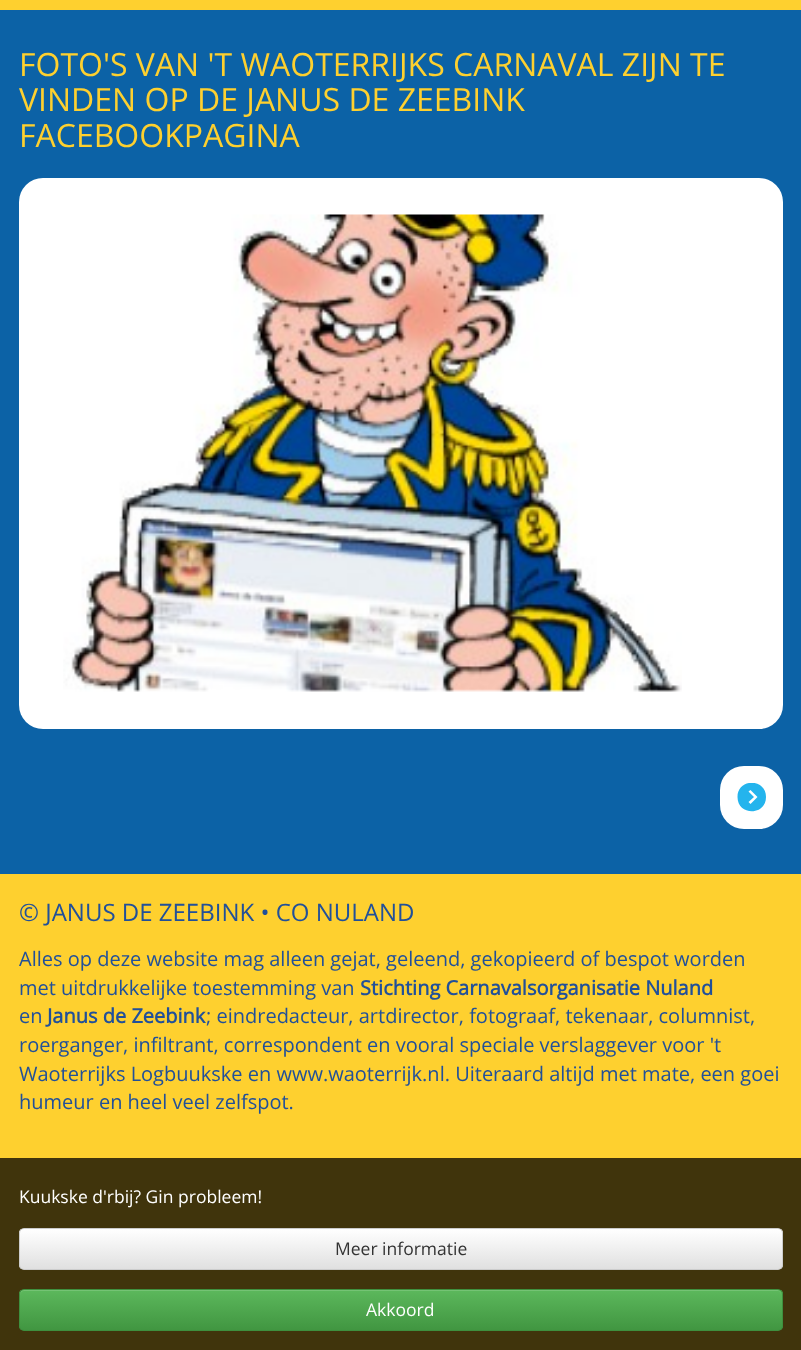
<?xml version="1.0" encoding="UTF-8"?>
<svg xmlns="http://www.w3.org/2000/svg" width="801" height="1350">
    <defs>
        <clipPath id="clip1"><rect x="736" y="783" width="30" height="30"/></clipPath>
        <clipPath id="clip2"><rect x="19" y="1228" width="764" height="42" rx="5"/></clipPath>
        <linearGradient id="g1" gradientUnits="userSpaceOnUse" x1="401" y1="1229" x2="401" y2="1269"><stop offset="0" stop-color="#FFFFFF"/><stop offset="1" stop-color="#E0E0E0"/></linearGradient>
        <clipPath id="clip3"><rect x="19" y="1289" width="764" height="42" rx="5"/></clipPath>
        <linearGradient id="g2" gradientUnits="userSpaceOnUse" x1="401" y1="1290" x2="401" y2="1330"><stop offset="0" stop-color="#5CB85C"/><stop offset="1" stop-color="#419641"/></linearGradient>
    </defs>
    <rect width="100%" height="100%" fill="#FED02F"/>
    <rect x="0" y="10" width="801" height="864" fill="#0C62A6"/>
    <text font-family="Open Sans" font-size="32" fill="#FED02F">
        <tspan x="19" y="76">FOTO'S VAN 'T WAOTERRIJKS CARNAVAL ZIJN TE</tspan>
        <tspan x="19" y="111">VINDEN OP DE JANUS DE ZEEBINK</tspan>
        <tspan x="19" y="147">FACEBOOKPAGINA</tspan>
    </text>
    <rect x="19" y="178" width="764" height="551" rx="24" fill="#FFFFFF"/>
    <image x="63" y="214" width="619" height="478" href="img_01.png"/>
    <rect x="720" y="766" width="63" height="63" rx="24" fill="#FFFFFF"/>
    <g clip-path="url(#clip1)">
        <path d="M 766 797 C 766 778 737.5 778 737.5 797 C 737.5 816 766 816 766 797 Z M 750.5 790 L 748.5 791.5 L 754 797 L 748.5 802 L 750.5 804 L 757.5 797 Z" fill="#24B4ED" fill-rule="evenodd"/>
    </g>
    <text x="19" y="921" font-family="Open Sans" font-size="24" fill="#21509A">© JANUS DE ZEEBINK • CO NULAND</text>
    <text font-family="Open Sans" font-size="20" fill="#21509A">
        <tspan x="19" y="966">Alles op deze website mag alleen gejat, geleend, gekopieerd of bespot worden</tspan>
        <tspan x="19" y="995">met uitdrukkelijke toestemming van</tspan>
    </text>
    <text x="360" y="995" font-family="Open Sans" font-size="20" font-weight="700" fill="#21509A">Stichting Carnavalsorganisatie Nuland</text>
    <text x="19" y="1023" font-family="Open Sans" font-size="20" fill="#21509A">en</text>
    <text x="47" y="1023" font-family="Open Sans" font-size="20" font-weight="700" fill="#21509A">Janus de Zeebink</text>
    <text x="206" y="1023" font-family="Open Sans" font-size="20" fill="#21509A">; eindredacteur, artdirector, fotograaf, tekenaar, columnist,</text>
    <text font-family="Open Sans" font-size="20" fill="#21509A">
        <tspan x="19" y="1052">roerganger, infiltrant, correspondent en vooral speciale verslaggever voor 't</tspan>
        <tspan x="19" y="1081">Waoterrijks Logbuukske en www.waoterrijk.nl. Uiteraard altijd met mate, een goei</tspan>
        <tspan x="19" y="1109">humeur en heel veel zelfspot.</tspan>
    </text>
    <rect x="0" y="1158" width="801" height="192" fill="#40340C"/>
    <text x="19" y="1203" font-family="Open Sans" font-size="17.5" fill="#FFFFFF">Kuukske d'rbij? Gin probleem!</text>
    <g clip-path="url(#clip2)">
        <rect x="19" y="1229" width="764" height="40" fill="url(#g1)"/>
    </g>
    <rect x="19.5" y="1228.5" width="763" height="41" rx="4.5" fill="none" stroke="#CCCCCC"/>
    <text x="335" y="1255" font-family="Open Sans" font-size="17.5" fill="#333333">Meer informatie</text>
    <g clip-path="url(#clip3)">
        <rect x="19" y="1290" width="764" height="40" fill="url(#g2)"/>
    </g>
    <path d="M 24 1291 H 778 C 780 1291 781 1293 781 1295 V 1294 C 781 1292 779 1290 777 1290 H 24 C 22 1290 20 1292 20 1294 V 1295 C 20 1293 22 1291 24 1291 Z" fill="#74C374"/>
    <rect x="19.5" y="1289.5" width="763" height="41" rx="4.5" fill="none" stroke="#3E8F3E"/>
    <text x="366" y="1316" font-family="Open Sans" font-size="17.5" fill="#FFFFFF">Akkoord</text>
</svg>
